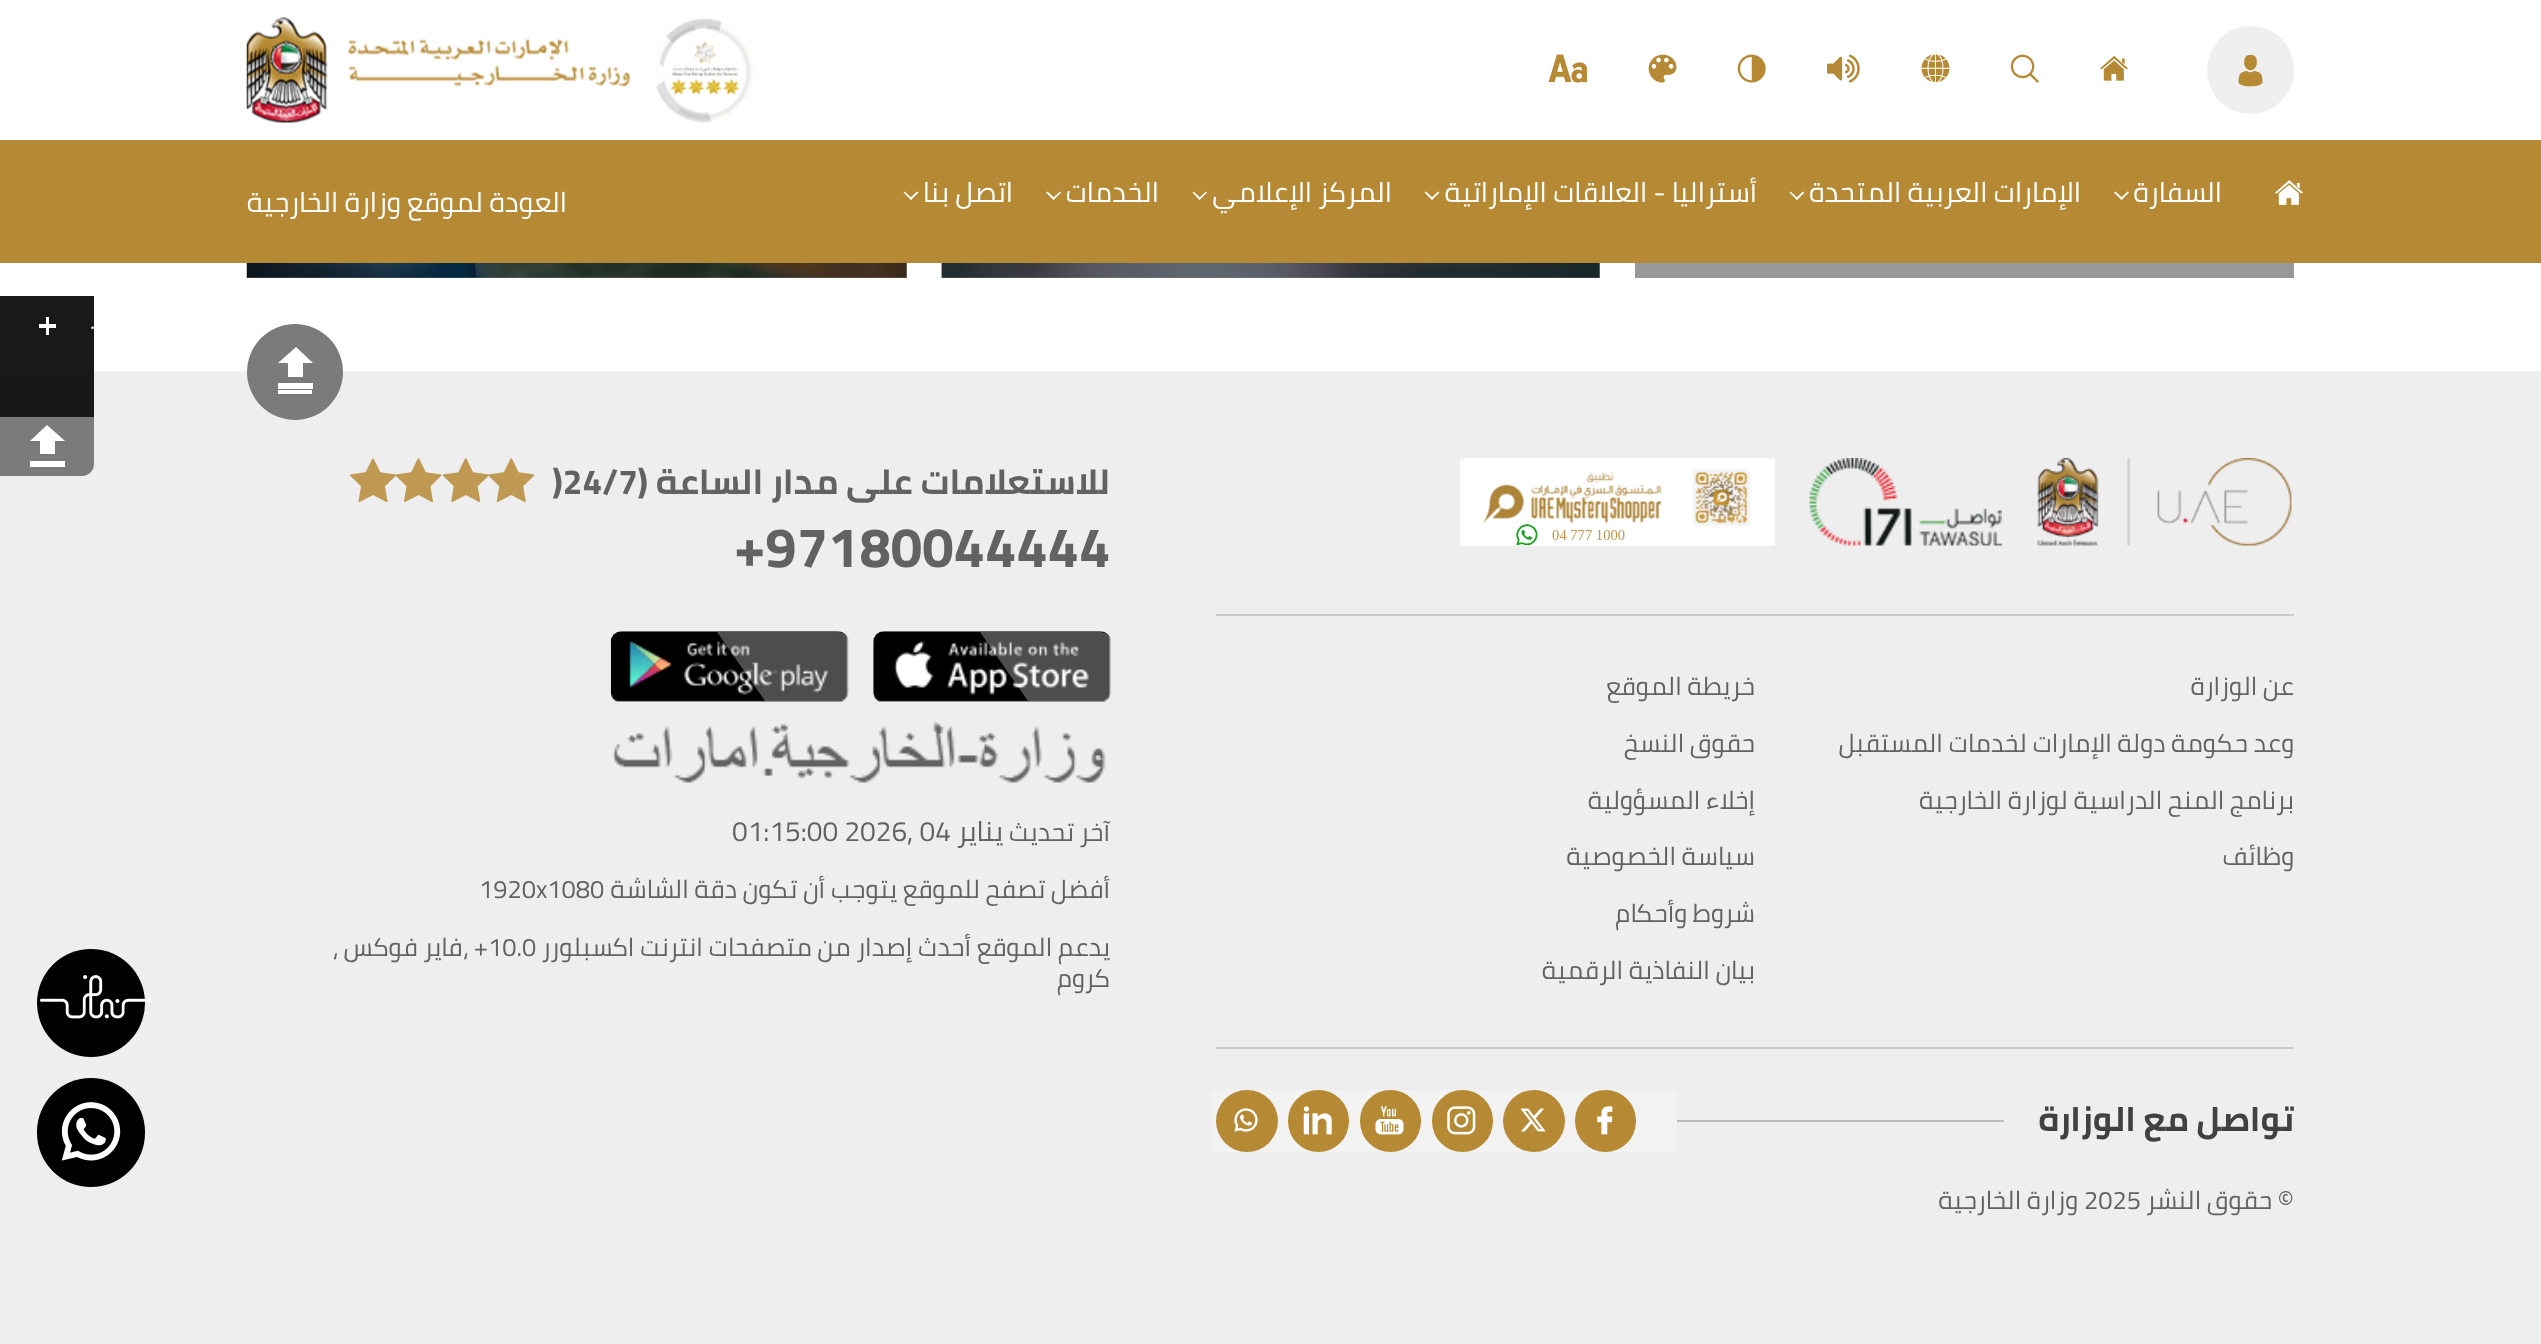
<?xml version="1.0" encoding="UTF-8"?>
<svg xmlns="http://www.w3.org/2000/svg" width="2541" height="1344">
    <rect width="100%" height="100%" fill="#FFFFFF"/>
    <rect x="0" y="296" width="94" height="75" fill="#191919"/>
    <rect x="247" y="263" width="660" height="15" fill="#999999"/>
    <rect x="942" y="263" width="658" height="15" fill="#999999"/>
    <rect x="2207" y="26" width="87" height="88" rx="43.5" fill="#EFEFEF"/>
    <image x="2238" y="54" width="25" height="33" href="img_01.png"/>
    <image x="2100" y="55" width="28" height="26" href="img_02.png"/>
    <image x="2010" y="54" width="29" height="29" href="img_03.png"/>
    <image x="1921" y="54" width="29" height="29" href="img_04.png"/>
    <image x="1827" y="54" width="33" height="29" href="img_05.png"/>
    <image x="1737" y="54" width="29" height="29" href="img_06.png"/>
    <image x="1648" y="54" width="29" height="29" href="img_07.png"/>
    <image x="1548" y="54" width="39" height="29" href="img_08.png"/>
    <image x="655" y="18" width="98" height="105" href="img_09.png"/>
    <image x="246" y="17" width="385" height="106" href="img_10.png"/>
    <rect x="0" y="140" width="2541" height="123" fill="#B68A35"/>
    <image x="2275" y="180" width="28" height="25" href="img_11.png"/>
    <text x="2222" y="202" font-family="Cairo" font-size="28" direction="rtl" fill="#FFFFFF">السفارة</text>
    <path d="M 2127.5 191.5 L 2129 192.5 L 2121.5 200 L 2120.5 198.5 Z" fill="#FFFFFF"/>
    <path d="M 2115.5 191.5 L 2123 198.5 L 2121.5 200 L 2114 192.5 Z" fill="#FFFFFF"/>
    <text x="2081" y="202" font-family="Cairo" font-size="28" direction="rtl" fill="#FFFFFF">الإمارات العربية المتحدة</text>
    <path d="M 1803 191.5 L 1804.5 192.5 L 1797 200 L 1795.5 198.5 Z" fill="#FFFFFF"/>
    <path d="M 1790.5 191.5 L 1798 198.5 L 1797 200 L 1789.5 192.5 Z" fill="#FFFFFF"/>
    <text x="1757" y="202" font-family="Cairo" font-size="28" direction="rtl" fill="#FFFFFF">أستراليا - العلاقات الإماراتية</text>
    <path d="M 1438 191.5 L 1439.5 192.5 L 1432 200 L 1431 198.5 Z" fill="#FFFFFF"/>
    <path d="M 1426 191.5 L 1433.5 198.5 L 1432 200 L 1424.5 192.5 Z" fill="#FFFFFF"/>
    <text x="1392" y="202" font-family="Cairo" font-size="28" direction="rtl" fill="#FFFFFF">المركز الإعلامي</text>
    <path d="M 1206 191.5 L 1207 192.5 L 1199.5 200 L 1198.5 198.5 Z" fill="#FFFFFF"/>
    <path d="M 1193.5 191.5 L 1201 198.5 L 1199.5 200 L 1192.5 192.5 Z" fill="#FFFFFF"/>
    <text x="1159" y="202" font-family="Cairo" font-size="28" direction="rtl" fill="#FFFFFF">الخدمات</text>
    <path d="M 1060 191.5 L 1061 192.5 L 1053.5 200 L 1052.5 198.5 Z" fill="#FFFFFF"/>
    <path d="M 1047.5 191.5 L 1055 198.5 L 1053.5 200 L 1046 192.5 Z" fill="#FFFFFF"/>
    <text x="1013" y="202" font-family="Cairo" font-size="28" direction="rtl" fill="#FFFFFF">اتصل بنا</text>
    <path d="M 917 191.5 L 918.5 192.5 L 911 200 L 909.5 198.5 Z" fill="#FFFFFF"/>
    <path d="M 904.5 191.5 L 912 198.5 L 911 200 L 903.5 192.5 Z" fill="#FFFFFF"/>
    <text x="567" y="212" font-family="Cairo" font-size="28" direction="rtl" fill="#FFFFFF">العودة لموقع وزارة الخارجية</text>
    <rect x="1635" y="263" width="659" height="15" fill="#999999"/>
    <image x="941" y="263" width="659" height="15" href="img_12.png"/>
    <image x="246" y="263" width="661" height="15" href="img_13.png"/>
    <rect x="39" y="324" width="17" height="4" fill="#FFFFFF"/>
    <rect x="46" y="317" width="3" height="18" fill="#FFFFFF"/>
    <rect x="0" y="371" width="2541" height="973" fill="#EEEEEE"/>
    <rect x="0" y="371" width="94" height="46" fill="#181818"/>
    <text x="96" y="347" transform="rotate(90 96 347)" font-family="Cairo" font-size="28" direction="rtl" fill="#FFFFFF">تابعنا</text>
    <path d="M 94 417 V 464 C 94 470 89 476 82 476 H 0 V 417 Z" fill="#7B7B7B"/>
    <path d="M 40 454 H 55 V 441 H 65 L 47 425 L 30 441 H 40 Z M 30 461 H 65 V 467 H 30 Z" fill="#FFFFFF"/>
    <circle cx="295" cy="372" r="48" fill="#7B7B7B"/>
    <path d="M 288 377 H 303 V 363 H 313 L 296 347 L 278 363 H 288 Z M 278 383 H 313 V 389 H 278 Z" fill="#FFFFFF"/>
    <rect x="278" y="390" width="34" height="4" fill="#FFFFFF"/>
    <image x="2037" y="458" width="255" height="88" href="img_14.png"/>
    <image x="1809" y="458" width="193" height="88" href="img_15.png"/>
    <rect x="1460" y="459" width="315" height="87" fill="#FFFFFF"/>
    <image x="1464" y="458" width="306" height="88" href="img_16.png"/>
    <rect x="1216" y="614" width="1078" height="2" fill="#CCCCCC"/>
    <rect x="1216" y="1047" width="1078" height="2" fill="#CCCCCC"/>
    <text x="2294" y="695" font-family="Cairo" font-size="25.4" direction="rtl" fill="#626262">عن الوزارة</text>
    <text x="2294" y="752" font-family="Cairo" font-size="25.4" direction="rtl" fill="#626262">وعد حكومة دولة الإمارات لخدمات المستقبل</text>
    <text x="2294" y="809" font-family="Cairo" font-size="25.4" direction="rtl" fill="#626262">برنامج المنح الدراسية لوزارة الخارجية</text>
    <text x="2294" y="865" font-family="Cairo" font-size="25.4" direction="rtl" fill="#626262">وظائف</text>
    <text x="1755" y="695" font-family="Cairo" font-size="25.4" direction="rtl" fill="#626262">خريطة الموقع</text>
    <text x="1755" y="752" font-family="Cairo" font-size="25.4" direction="rtl" fill="#626262">حقوق النسخ</text>
    <text x="1755" y="809" font-family="Cairo" font-size="25.4" direction="rtl" fill="#626262">إخلاء المسؤولية</text>
    <text x="1755" y="865" font-family="Cairo" font-size="25.4" direction="rtl" fill="#626262">سياسة الخصوصية</text>
    <text x="1755" y="922" font-family="Cairo" font-size="25.4" direction="rtl" fill="#626262">شروط وأحكام</text>
    <text x="1755" y="979" font-family="Cairo" font-size="25.4" direction="rtl" fill="#626262">بيان النفاذية الرقمية</text>
    <text x="2294" y="1131" font-family="Cairo" font-size="34.25" font-weight="700" direction="rtl" fill="#414141">تواصل مع الوزارة</text>
    <rect x="1671" y="1120" width="333" height="2" fill="#BCBCBC"/>
    <rect x="1211" y="1090" width="466" height="62" fill="#F2F2F2"/>
    <rect x="1575" y="1090" width="61" height="62" rx="30.5" fill="#B68A35"/>
    <image x="1597" y="1106" width="16" height="29" href="img_17.png"/>
    <circle cx="1534" cy="1121" r="31" fill="#B68A35"/>
    <image x="1520" y="1108" width="26" height="24" href="img_18.png"/>
    <rect x="1432" y="1090" width="61" height="62" rx="30.5" fill="#B68A35"/>
    <image x="1447" y="1106" width="29" height="29" href="img_19.png"/>
    <rect x="1360" y="1090" width="61" height="62" rx="30.5" fill="#B68A35"/>
    <image x="1375" y="1106" width="29" height="29" href="img_20.png"/>
    <rect x="1288" y="1090" width="61" height="62" rx="30.5" fill="#B68A35"/>
    <image x="1303" y="1106" width="29" height="29" href="img_21.png"/>
    <circle cx="1247" cy="1121" r="31" fill="#B68A35"/>
    <image x="1234" y="1108" width="24" height="24" href="img_22.png"/>
    <text x="2294" y="1209" font-family="Cairo" font-size="25.4" direction="rtl" fill="#626262">© حقوق النشر</text>
    <text x="2084" y="1209" font-family="Cairo" font-size="25.4" fill="#626262">2025</text>
    <text x="2078" y="1209" font-family="Cairo" font-size="25.4" direction="rtl" fill="#626262">وزارة الخارجية</text>
    <text x="1110" y="494" font-family="Cairo" font-size="35" font-weight="700" direction="rtl" fill="#626262">للاستعلامات على مدار الساعة (</text>
    <text x="552" y="494" font-family="Cairo" font-size="35" font-weight="700" fill="#626262">)24/7</text>
    <image x="488" y="458" width="47" height="45" href="img_23.png"/>
    <image x="442" y="458" width="47" height="45" href="img_24.png"/>
    <image x="395" y="458" width="47" height="45" href="img_25.png"/>
    <image x="350" y="458" width="46" height="45" href="img_26.png"/>
    <text x="734" y="567" font-family="Cairo" font-size="56" font-weight="700" fill="#626262">+97180044444</text>
    <image x="873" y="631" width="238" height="71" href="img_27.png"/>
    <path d="M 1108 701 H 1028 L 980 632 H 1100 C 1106 632 1111 637 1111 643 V 693 C 1111 696 1110 699 1108 701 Z" fill="#FFFFFF" fill-opacity="0.3"/>
    <image x="610" y="631" width="239" height="71" href="img_28.png"/>
    <path d="M 846 701 H 765 L 717 632 H 838 C 844 632 849 637 849 643 V 693 C 849 696 848 699 846 701 Z" fill="#FFFFFF" fill-opacity="0.3"/>
    <image x="612" y="722" width="494" height="61" href="img_29.png"/>
    <text x="1110" y="841" font-family="Cairo" font-size="25.4" direction="rtl" fill="#626262">آخر تحديث</text>
    <text x="1003" y="841" font-family="Cairo" font-size="28" direction="rtl" fill="#626262">يناير</text>
    <text x="732" y="841" font-family="Cairo" font-size="28" fill="#626262">01:15:00 2026, 04</text>
    <text x="1110" y="898" font-family="Cairo" font-size="25.4" direction="rtl" fill="#626262">أفضل تصفح للموقع يتوجب أن تكون دقة الشاشة</text>
    <text x="479" y="898" font-family="Cairo" font-size="25.4" fill="#626262">1920x1080</text>
    <text x="1110" y="956" font-family="Cairo" font-size="25.4" direction="rtl" fill="#626262">يدعم الموقع</text>
    <text x="971" y="956" font-family="Cairo" font-size="25.4" direction="rtl" fill="#626262">أحدث إصدار من متصفحات انترنت اكسبلورر</text>
    <text x="488" y="956" font-family="Cairo" font-size="25.4" fill="#626262">10.0</text>
    <text x="488" y="956" font-family="Cairo" font-size="25.4" direction="rtl" fill="#626262">+ ،فاير فوكس ،</text>
    <text x="1110" y="987" font-family="Cairo" font-size="25.4" direction="rtl" fill="#626262">كروم</text>
    <circle cx="91" cy="1003" r="54" fill="#000000"/>
    <image x="39" y="975" width="112" height="44" href="img_30.png"/>
    <rect x="37" y="1078" width="108" height="109" rx="54" fill="#000000"/>
    <image x="61" y="1102" width="60" height="59" href="img_31.png"/>
</svg>
